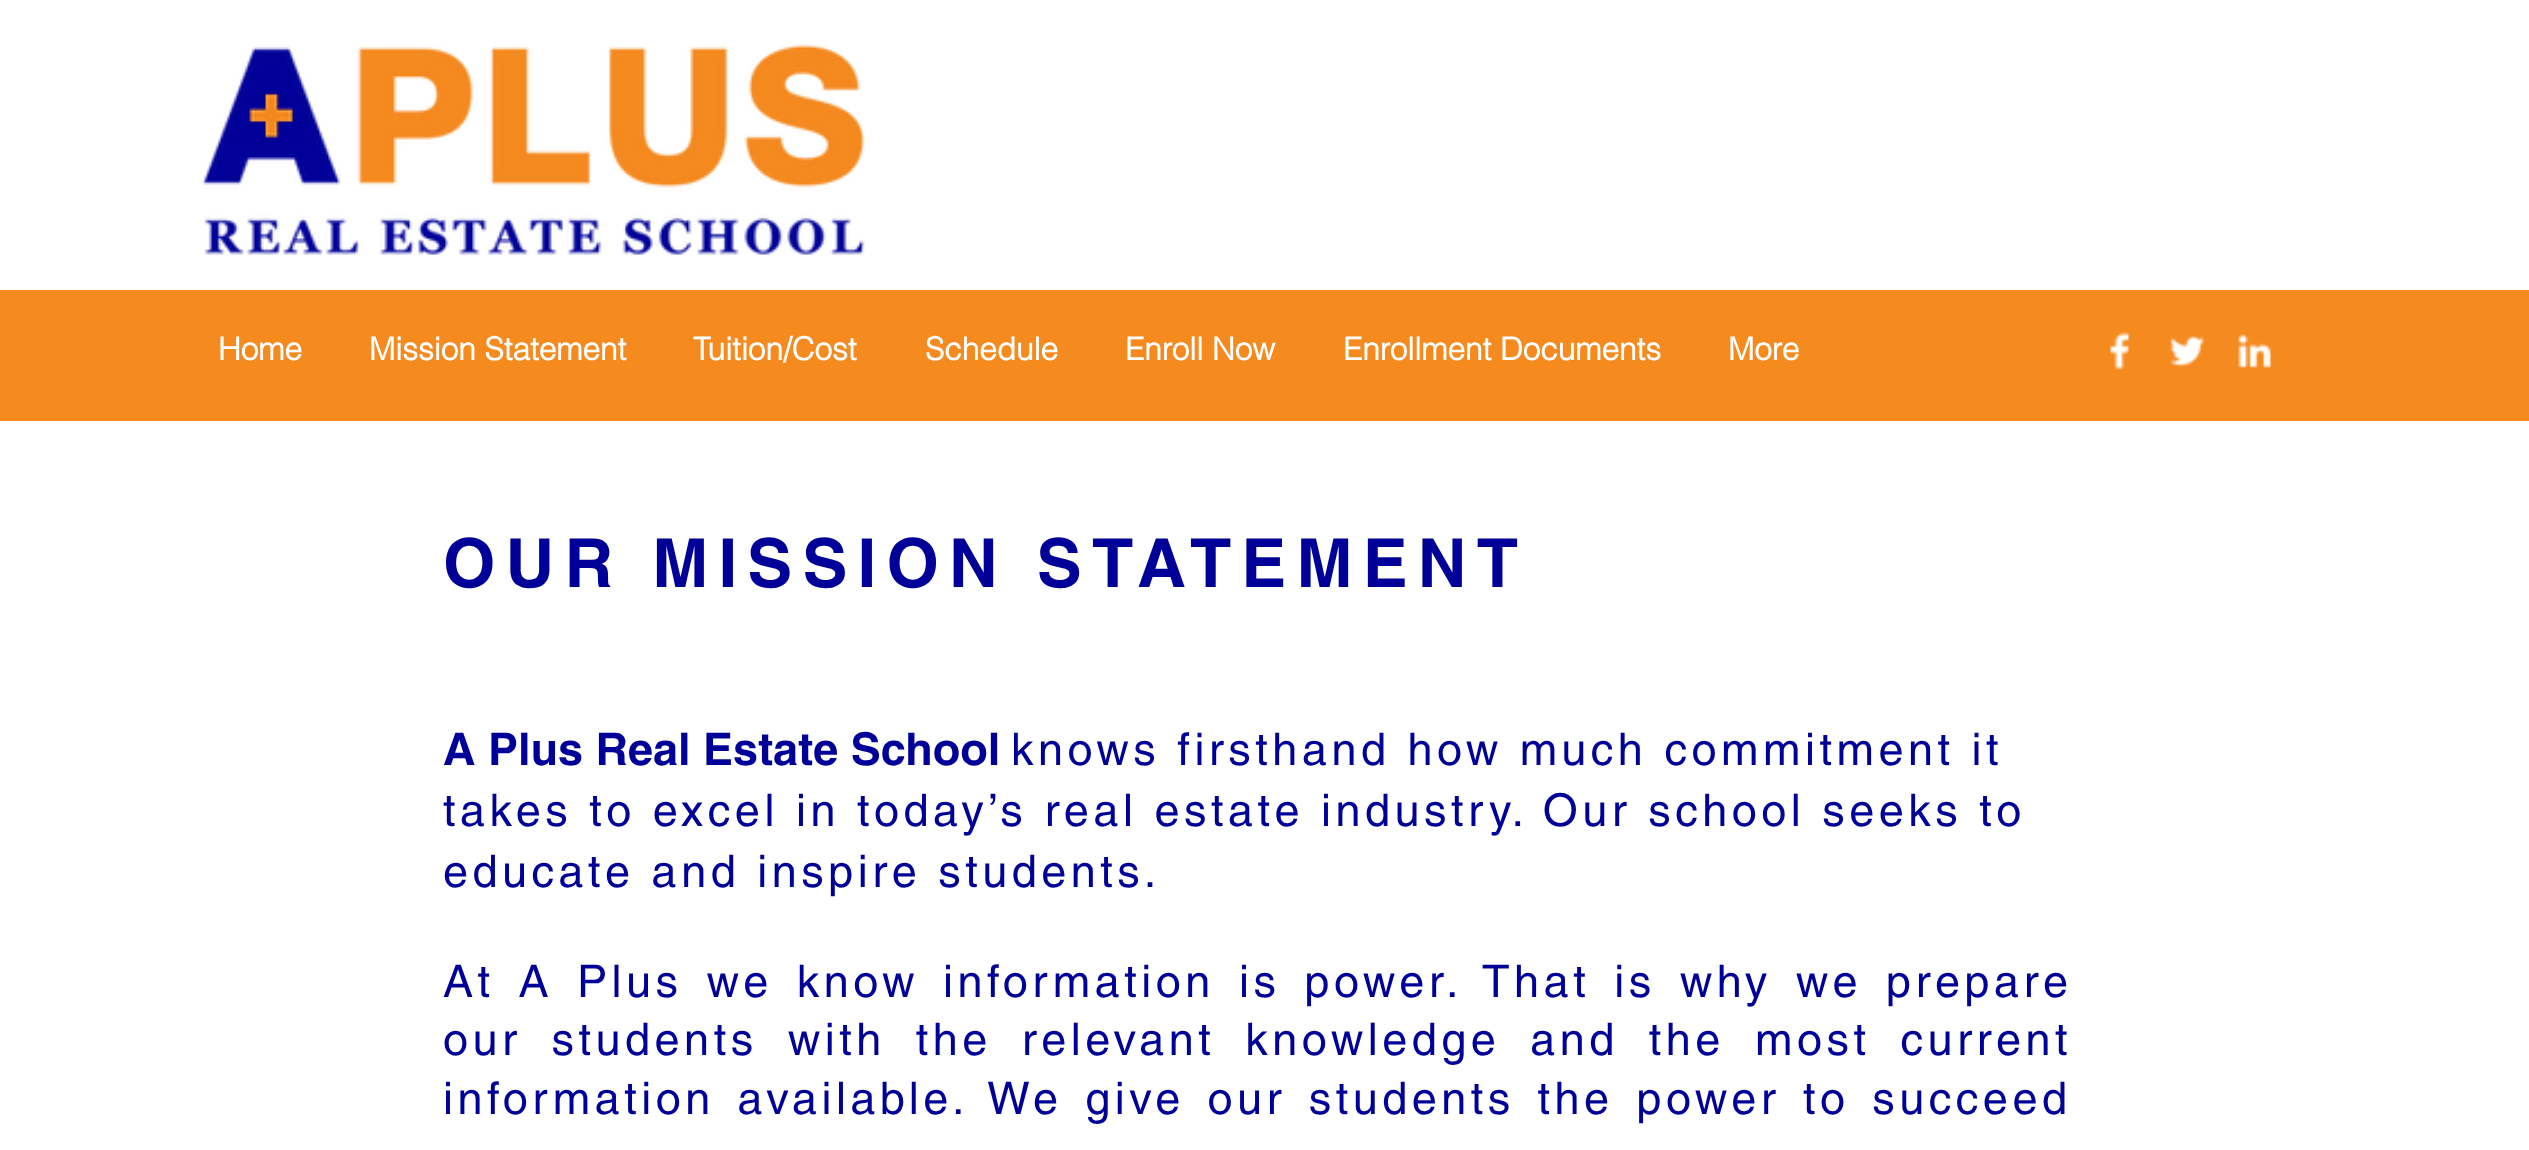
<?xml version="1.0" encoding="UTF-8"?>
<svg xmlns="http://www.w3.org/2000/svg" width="2529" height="1150">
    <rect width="100%" height="100%" fill="#FFFFFF"/>
    <image x="202" y="44" width="663" height="211" href="img_01.png"/>
    <rect x="0" y="290" width="2529" height="131" fill="#F58A1F"/>
    <text x="218" y="360" font-family="'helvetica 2'" font-size="31.5" font-weight="700" fill="#FFFFFF">Home</text>
    <text x="369" y="360" font-family="'helvetica 2'" font-size="31.5" font-weight="700" fill="#FFFFFF">Mission Statement</text>
    <text x="693" y="360" font-family="'helvetica 2'" font-size="31.5" font-weight="700" fill="#FFFFFF">Tuition/Cost</text>
    <text x="925" y="360" font-family="'helvetica 2'" font-size="31.5" font-weight="700" fill="#FFFFFF">Schedule</text>
    <text x="1125" y="360" font-family="'helvetica 2'" font-size="31.5" font-weight="700" fill="#FFFFFF">Enroll Now</text>
    <text x="1343" y="360" font-family="'helvetica 2'" font-size="31.5" font-weight="700" fill="#FFFFFF">Enrollment Documents</text>
    <text x="1728" y="360" font-family="'helvetica 2'" font-size="31.5" font-weight="700" fill="#FFFFFF">More</text>
    <image x="2110" y="332" width="20" height="38" href="img_02.png"/>
    <image x="2169" y="335" width="37" height="33" href="img_03.png"/>
    <image x="2238" y="334" width="35" height="35" href="img_04.png"/>
    <text x="443" y="587" font-family="helvetica" font-size="67.5" font-weight="700" letter-spacing="10.1" fill="#000099">OUR MISSION STATEMENT</text>
    <text x="443" y="765" font-family="helvetica" font-size="45" font-weight="700" fill="#000099">A Plus Real Estate School</text>
    <text x="1011" y="765" font-family="helvetica" font-size="45" letter-spacing="4.5" fill="#000099">knows firsthand how much commitment it</text>
    <text font-family="helvetica" font-size="45" letter-spacing="4.5" fill="#000099">
        <tspan x="443" y="826">takes to excel in today’s real estate industry. Our school seeks to</tspan>
        <tspan x="443" y="887">educate and inspire students.</tspan>
    </text>
    <text font-family="helvetica" font-size="45" letter-spacing="4.5" fill="#000099">
        <tspan x="443" y="997" word-spacing="7">At A Plus we know information is power. That is why we prepare</tspan>
        <tspan x="443" y="1055" word-spacing="13">our students with the relevant knowledge and the most current</tspan>
        <tspan x="443" y="1114" word-spacing="5.75">information available. We give our students the power to succeed</tspan>
    </text>
</svg>
